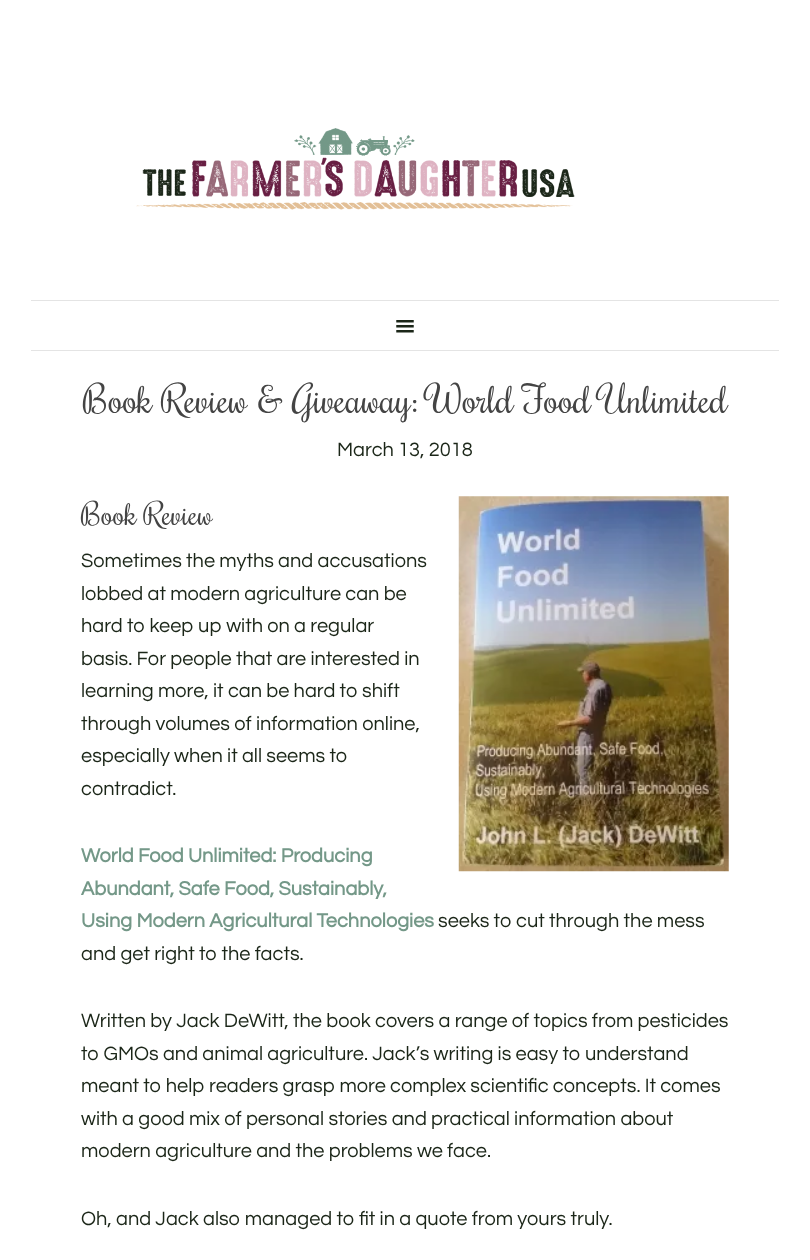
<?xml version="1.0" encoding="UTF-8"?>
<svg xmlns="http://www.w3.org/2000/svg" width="810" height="1260">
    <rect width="100%" height="100%" fill="#FFFFFF"/>
    <image x="136" y="128" width="439" height="82" href="img_01.png"/>
    <rect x="31" y="300" width="748" height="1" fill="#E4E4E4"/>
    <rect x="31" y="350" width="748" height="1" fill="#E4E4E4"/>
    <image x="396" y="320" width="18" height="13" href="img_02.png"/>
    <text x="83" y="413" font-family="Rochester" font-size="37.5" fill="#444444">Book Review &amp; Giveaway: World Food Unlimited</text>
    <text x="337" y="456" font-family="Questrial" font-size="20" fill="#1B2618">March 13, 2018</text>
    <text x="81" y="525" font-family="Rochester" font-size="30" fill="#444444">Book Review</text>
    <image x="458" y="496" width="271" height="376" href="img_03.png"/>
    <text font-family="Questrial" font-size="20" fill="#1B2618">
        <tspan x="81" y="567">Sometimes the myths and accusations</tspan>
        <tspan x="81" y="600">lobbed at modern agriculture can be</tspan>
        <tspan x="81" y="632">hard to keep up with on a regular</tspan>
        <tspan x="81" y="665">basis. For people that are interested in</tspan>
        <tspan x="81" y="697">learning more, it can be hard to shift</tspan>
        <tspan x="81" y="730">through volumes of information online,</tspan>
        <tspan x="81" y="762">especially when it all seems to</tspan>
        <tspan x="81" y="795">contradict.</tspan>
    </text>
    <text font-family="Questrial" font-size="20" font-weight="700" fill="#749888">
        <tspan x="81" y="862">World Food Unlimited: Producing</tspan>
        <tspan x="81" y="895">Abundant, Safe Food, Sustainably,</tspan>
        <tspan x="81" y="927">Using Modern Agricultural Technologies</tspan>
    </text>
    <text x="438" y="927" font-family="Questrial" font-size="20" fill="#1B2618">seeks to cut through the mess</text>
    <text x="81" y="960" font-family="Questrial" font-size="20" fill="#1B2618">and get right to the facts.</text>
    <text font-family="Questrial" font-size="20" fill="#1B2618">
        <tspan x="81" y="1027">Written by Jack DeWitt, the book covers a range of topics from pesticides</tspan>
        <tspan x="81" y="1060">to GMOs and animal agriculture. Jack’s writing is easy to understand</tspan>
        <tspan x="81" y="1092">meant to help readers grasp more complex scientific concepts. It comes</tspan>
        <tspan x="81" y="1125">with a good mix of personal stories and practical information about</tspan>
        <tspan x="81" y="1157">modern agriculture and the problems we face.</tspan>
    </text>
    <text x="81" y="1225" font-family="Questrial" font-size="20" fill="#1B2618">Oh, and Jack also managed to fit in a quote from yours truly.</text>
</svg>
